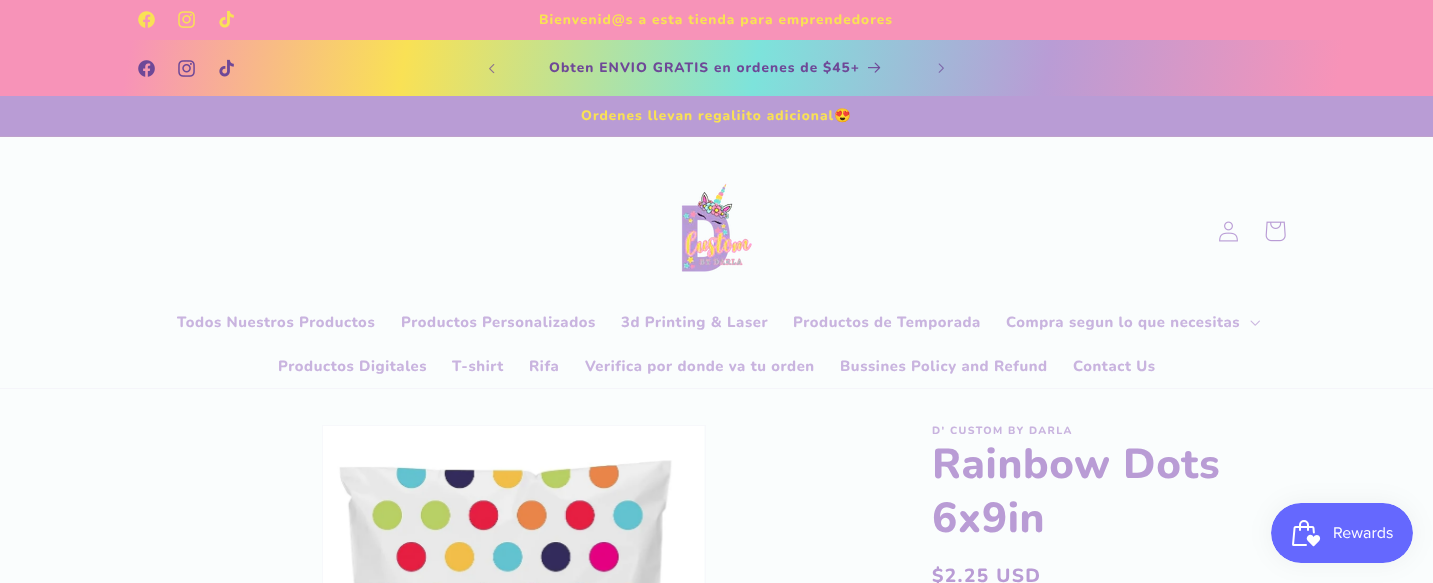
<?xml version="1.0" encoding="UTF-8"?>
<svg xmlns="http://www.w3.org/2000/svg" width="1433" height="583">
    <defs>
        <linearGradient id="g1" gradientUnits="userSpaceOnUse" x1="-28" y1="160" x2="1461" y2="423"><stop offset="0.09" stop-color="#F793B8"/><stop offset="0.27" stop-color="#F9E155"/><stop offset="0.5" stop-color="#7DE3DB"/><stop offset="0.69" stop-color="#B99CD5"/><stop offset="0.88" stop-color="#F793B8"/></linearGradient>
        <filter id="blur1" x="-50%" y="-200%" width="200%" height="500%"><feGaussianBlur stdDeviation="12.5"/></filter>
    </defs>
    <rect width="100%" height="100%" fill="#FAFDFD"/>
    <rect x="0" y="0" width="1433" height="40" fill="#F793B8"/>
    <image x="138" y="11" width="17" height="17" href="img_01.png"/>
    <image x="178" y="11" width="17" height="17" href="img_02.png"/>
    <image x="219" y="10" width="15" height="18" href="img_03.png"/>
    <text x="539" y="24" font-family="Nunito" font-size="13.65" font-weight="800" letter-spacing="1.05" fill="#F9E155">Bienvenid@s a esta tienda para emprendedores</text>
    <rect x="0" y="40" width="1433" height="56" fill="url(#g1)"/>
    <image x="138" y="60" width="17" height="17" href="img_04.png"/>
    <image x="178" y="60" width="17" height="17" href="img_05.png"/>
    <image x="219" y="59" width="15" height="18" href="img_06.png"/>
    <image x="489" y="64" width="6" height="10" href="img_07.png"/>
    <text x="549" y="72" font-family="Nunito" font-size="13.65" font-weight="800" letter-spacing="1.05" fill="#6E4897">Obten ENVIO GRATIS en ordenes de $45+</text>
    <image x="868" y="62" width="13" height="11" href="img_08.png"/>
    <image x="938" y="63" width="6" height="10" href="img_09.png"/>
    <rect x="0" y="96" width="1433" height="40" fill="#B99CD5"/>
    <rect x="0" y="136" width="1433" height="1" fill="#BEA2CB"/>
    <text x="581" y="120" font-family="Nunito" font-size="13.65" font-weight="800" letter-spacing="1.05" fill="#F9E155">Ordenes llevan regaliito adicional</text>
    <text x="834" y="120" font-family="Noto Color Emoji" font-size="13.65" font-weight="700" letter-spacing="1.05" fill="#F9E155">😍</text>
    <rect x="0" y="388" width="1433" height="1" fill="#F5F5FA"/>
    <image x="681" y="183" width="71" height="89" href="img_10.png"/>
    <image x="1219" y="221" width="19" height="21" href="img_11.png"/>
    <image x="1265" y="221" width="21" height="21" href="img_12.png"/>
    <text x="177" y="327" font-family="Nunito" font-size="14.75" font-weight="800" letter-spacing="0.6" fill="#C9B4DF">Todos Nuestros Productos</text>
    <text x="401" y="327" font-family="Nunito" font-size="14.75" font-weight="800" letter-spacing="0.6" fill="#C9B4DF">Productos Personalizados</text>
    <text x="621" y="327" font-family="Nunito" font-size="14.75" font-weight="800" letter-spacing="0.6" fill="#C9B4DF">3d Printing &amp; Laser</text>
    <text x="793" y="327" font-family="Nunito" font-size="14.75" font-weight="800" letter-spacing="0.6" fill="#C9B4DF">Productos de Temporada</text>
    <text x="1006" y="327" font-family="Nunito" font-size="14.75" font-weight="800" letter-spacing="0.6" fill="#C9B4DF">Compra segun lo que necesitas</text>
    <image x="1250" y="320" width="10" height="6" href="img_13.png"/>
    <text x="278" y="371" font-family="Nunito" font-size="14.75" font-weight="800" letter-spacing="0.6" fill="#C9B4DF">Productos Digitales</text>
    <text x="452" y="371" font-family="Nunito" font-size="14.75" font-weight="800" letter-spacing="0.6" fill="#C9B4DF">T-shirt</text>
    <text x="529" y="371" font-family="Nunito" font-size="14.75" font-weight="800" letter-spacing="0.6" fill="#C9B4DF">Rifa</text>
    <text x="585" y="371" font-family="Nunito" font-size="14.75" font-weight="800" letter-spacing="0.6" fill="#C9B4DF">Verifica por donde va tu orden</text>
    <text x="840" y="371" font-family="Nunito" font-size="14.75" font-weight="800" letter-spacing="0.6" fill="#C9B4DF">Bussines Policy and Refund</text>
    <text x="1073" y="371" font-family="Nunito" font-size="14.75" font-weight="800" letter-spacing="0.6" fill="#C9B4DF">Contact Us</text>
    <rect x="322.5" y="425.5" width="383" height="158" fill="none" stroke="#F7F8FB"/>
    <image x="323" y="426" width="381" height="157" href="img_14.png"/>
    <text x="932" y="434" font-family="Nunito" font-size="10.5" font-weight="800" letter-spacing="1.4" fill="#C9B4DF">D' CUSTOM BY DARLA</text>
    <text font-family="Nunito" font-size="42" font-weight="800" letter-spacing="0.6" fill="#B99CD5">
        <tspan x="932" y="478">Rainbow Dots</tspan>
        <tspan x="932" y="532">6x9in</tspan>
    </text>
    <text x="932" y="582" font-family="Nunito" font-size="19" font-weight="800" letter-spacing="1.4" fill="#B99CD5">$2.25 USD</text>
    <rect x="1271" y="503" width="142" height="60" rx="30" fill="#000000" fill-opacity="0.05" filter="url(#blur1)"/>
    <image x="1271" y="503" width="142" height="60" href="img_15.png"/>
</svg>
